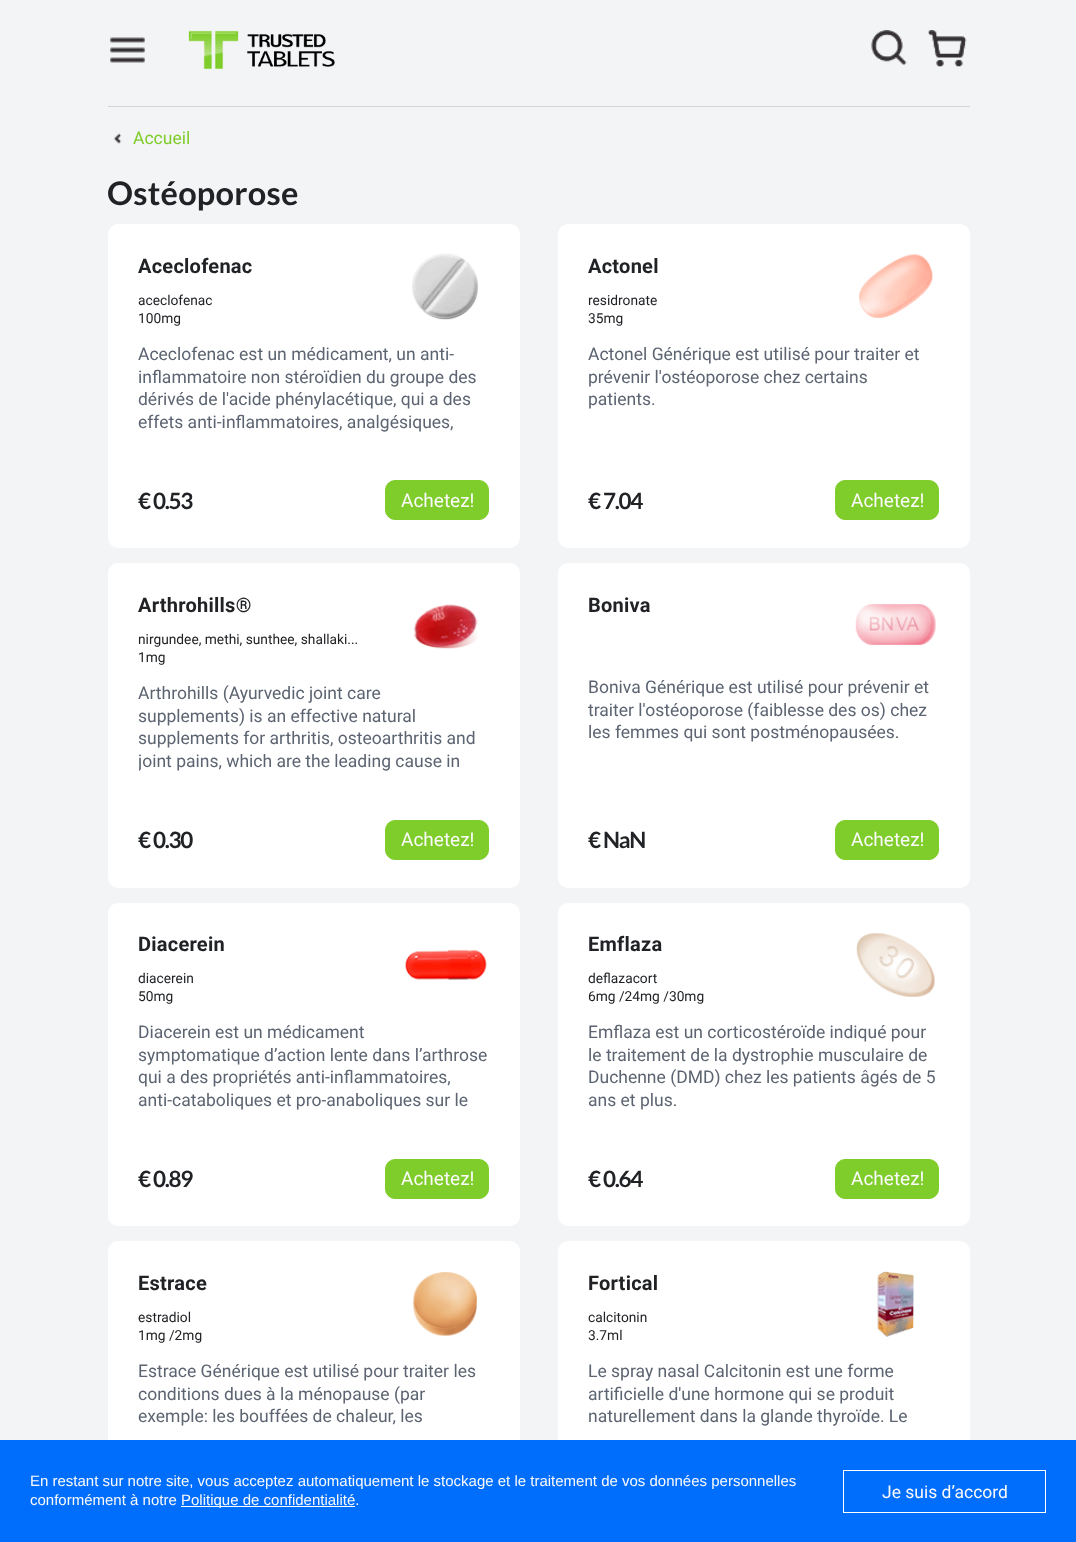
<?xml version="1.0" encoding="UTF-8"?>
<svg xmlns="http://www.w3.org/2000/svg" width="1076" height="1542">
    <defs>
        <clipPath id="clip1"><rect x="139" y="681" width="350" height="94"/></clipPath>
    </defs>
    <rect width="100%" height="100%" fill="#F3F4F5"/>
    <image x="110" y="37" width="35" height="26" href="img_01.png"/>
    <image x="188" y="30" width="147" height="40" href="img_02.png"/>
    <image x="871" y="30" width="36" height="35" href="img_03.png"/>
    <image x="928" y="30" width="39" height="37" href="img_04.png"/>
    <rect x="108" y="106" width="862" height="1" fill="#D2D4D9"/>
    <image x="113" y="133" width="9" height="11" href="img_05.png"/>
    <text x="133" y="144" font-family="Roboto" font-size="17.5" fill="#7FCD2A">Accueil</text>
    <text x="107" y="205" font-family="Lato" font-size="32.5" font-weight="700" letter-spacing="0.25" fill="#202225">Ostéoporose</text>
    <rect x="108" y="224" width="412" height="324" rx="10" fill="#FFFFFF"/>
    <text x="138" y="273" font-family="Roboto" font-size="20" font-weight="700" letter-spacing="0.25" fill="#202225">Aceclofenac</text>
    <text font-family="Roboto" font-size="13.75" fill="#202225">
        <tspan x="138" y="305">aceclofenac</tspan>
        <tspan x="138" y="323">100mg</tspan>
    </text>
    <image x="412" y="253" width="66" height="67" href="img_06.png"/>
    <text font-family="Roboto" font-size="17.5" fill="#5C6471">
        <tspan x="138" y="360">Aceclofenac est un médicament, un anti-</tspan>
        <tspan x="138" y="383">inflammatoire non stéroïdien du groupe des</tspan>
        <tspan x="138" y="405">dérivés de l'acide phénylacétique, qui a des</tspan>
        <tspan x="138" y="428">effets anti-inflammatoires, analgésiques,</tspan>
    </text>
    <text x="138" y="509" font-family="Lato" font-size="22.5" font-weight="700" letter-spacing="-1.25" fill="#202225">€ 0.53</text>
    <rect x="385.5" y="480.5" width="103" height="39" rx="9.5" fill="#7FCD2A" stroke="#7FCD2A"/>
    <text x="401" y="507" font-family="Roboto" font-size="19" fill="#FAFAFA">Achetez!</text>
    <rect x="558" y="224" width="412" height="324" rx="10" fill="#FFFFFF"/>
    <text x="588" y="273" font-family="Roboto" font-size="20" font-weight="700" letter-spacing="0.25" fill="#202225">Actonel</text>
    <text font-family="Roboto" font-size="13.75" fill="#202225">
        <tspan x="588" y="305">residronate</tspan>
        <tspan x="588" y="323">35mg</tspan>
    </text>
    <image x="859" y="254" width="74" height="64" href="img_07.png"/>
    <text font-family="Roboto" font-size="17.5" fill="#5C6471">
        <tspan x="588" y="360">Actonel Générique est utilisé pour traiter et</tspan>
        <tspan x="588" y="383">prévenir l'ostéoporose chez certains</tspan>
        <tspan x="588" y="405">patients.</tspan>
    </text>
    <text x="588" y="509" font-family="Lato" font-size="22.5" font-weight="700" letter-spacing="-1.25" fill="#202225">€ 7.04</text>
    <rect x="835.5" y="480.5" width="103" height="39" rx="9.5" fill="#7FCD2A" stroke="#7FCD2A"/>
    <text x="851" y="507" font-family="Roboto" font-size="19" fill="#FAFAFA">Achetez!</text>
    <rect x="108" y="563" width="412" height="325" rx="10" fill="#FFFFFF"/>
    <text x="138" y="612" font-family="Roboto" font-size="20" font-weight="700" letter-spacing="0.25" fill="#202225">Arthrohills®</text>
    <text font-family="Roboto" font-size="13.75" fill="#202225">
        <tspan x="138" y="644">nirgundee, methi, sunthee, shallaki...</tspan>
        <tspan x="138" y="662">1mg</tspan>
    </text>
    <image x="413" y="604" width="65" height="45" href="img_08.png"/>
    <text font-family="Roboto" font-size="17.5" fill="#5C6471">
        <tspan x="138" y="699">Arthrohills (Ayurvedic joint care</tspan>
        <tspan x="138" y="722">supplements) is an effective natural</tspan>
        <tspan x="138" y="744">supplements for arthritis, osteoarthritis and</tspan>
    </text>
    <g clip-path="url(#clip1)">
        <text x="138" y="767" font-family="Roboto" font-size="17.5" fill="#5C6471">joint pains, which are the leading cause in</text>
    </g>
    <text x="138" y="848" font-family="Lato" font-size="22.5" font-weight="700" letter-spacing="-1.25" fill="#202225">€ 0.30</text>
    <rect x="385.5" y="820.5" width="103" height="39" rx="9.5" fill="#7FCD2A" stroke="#7FCD2A"/>
    <text x="401" y="846" font-family="Roboto" font-size="19" fill="#FAFAFA">Achetez!</text>
    <rect x="558" y="563" width="412" height="325" rx="10" fill="#FFFFFF"/>
    <text x="588" y="612" font-family="Roboto" font-size="20" font-weight="700" letter-spacing="0.25" fill="#202225">Boniva</text>
    <image x="855" y="604" width="81" height="41" href="img_09.png"/>
    <text font-family="Roboto" font-size="17.5" fill="#5C6471">
        <tspan x="588" y="693">Boniva Générique est utilisé pour prévenir et</tspan>
        <tspan x="588" y="716">traiter l'ostéoporose (faiblesse des os) chez</tspan>
        <tspan x="588" y="738">les femmes qui sont postménopausées.</tspan>
    </text>
    <text x="588" y="848" font-family="Lato" font-size="22.5" font-weight="700" letter-spacing="-1.25" fill="#202225">€ NaN</text>
    <rect x="835.5" y="820.5" width="103" height="39" rx="9.5" fill="#7FCD2A" stroke="#7FCD2A"/>
    <text x="851" y="846" font-family="Roboto" font-size="19" fill="#FAFAFA">Achetez!</text>
    <rect x="108" y="903" width="412" height="323" rx="10" fill="#FFFFFF"/>
    <text x="138" y="951" font-family="Roboto" font-size="20" font-weight="700" letter-spacing="0.25" fill="#202225">Diacerein</text>
    <text font-family="Roboto" font-size="13.75" fill="#202225">
        <tspan x="138" y="983">diacerein</tspan>
        <tspan x="138" y="1001">50mg</tspan>
    </text>
    <image x="404" y="949" width="83" height="31" href="img_10.png"/>
    <text font-family="Roboto" font-size="17.5" fill="#5C6471">
        <tspan x="138" y="1038">Diacerein est un médicament</tspan>
        <tspan x="138" y="1061">symptomatique d’action lente dans l’arthrose</tspan>
        <tspan x="138" y="1083">qui a des propriétés anti-inflammatoires,</tspan>
        <tspan x="138" y="1106">anti-cataboliques et pro-anaboliques sur le</tspan>
    </text>
    <text x="138" y="1187" font-family="Lato" font-size="22.5" font-weight="700" letter-spacing="-1.25" fill="#202225">€ 0.89</text>
    <rect x="385.5" y="1159.5" width="103" height="39" rx="9.5" fill="#7FCD2A" stroke="#7FCD2A"/>
    <text x="401" y="1185" font-family="Roboto" font-size="19" fill="#FAFAFA">Achetez!</text>
    <rect x="558" y="903" width="412" height="323" rx="10" fill="#FFFFFF"/>
    <text x="588" y="951" font-family="Roboto" font-size="20" font-weight="700" letter-spacing="0.25" fill="#202225">Emflaza</text>
    <text font-family="Roboto" font-size="13.75" fill="#202225">
        <tspan x="588" y="983">deflazacort</tspan>
        <tspan x="588" y="1001">6mg /24mg /30mg</tspan>
    </text>
    <image x="856" y="933" width="79" height="64" href="img_11.png"/>
    <text font-family="Roboto" font-size="17.5" fill="#5C6471">
        <tspan x="588" y="1038">Emflaza est un corticostéroïde indiqué pour</tspan>
        <tspan x="588" y="1061">le traitement de la dystrophie musculaire de</tspan>
        <tspan x="588" y="1083">Duchenne (DMD) chez les patients âgés de 5</tspan>
        <tspan x="588" y="1106">ans et plus.</tspan>
    </text>
    <text x="588" y="1187" font-family="Lato" font-size="22.5" font-weight="700" letter-spacing="-1.25" fill="#202225">€ 0.64</text>
    <rect x="835.5" y="1159.5" width="103" height="39" rx="9.5" fill="#7FCD2A" stroke="#7FCD2A"/>
    <text x="851" y="1185" font-family="Roboto" font-size="19" fill="#FAFAFA">Achetez!</text>
    <rect x="108" y="1241" width="412" height="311" rx="10" fill="#FFFFFF"/>
    <text x="138" y="1290" font-family="Roboto" font-size="20" font-weight="700" letter-spacing="0.25" fill="#202225">Estrace</text>
    <text font-family="Roboto" font-size="13.75" fill="#202225">
        <tspan x="138" y="1322">estradiol</tspan>
        <tspan x="138" y="1340">1mg /2mg</tspan>
    </text>
    <image x="413" y="1272" width="64" height="64" href="img_12.png"/>
    <text font-family="Roboto" font-size="17.5" fill="#5C6471">
        <tspan x="138" y="1377">Estrace Générique est utilisé pour traiter les</tspan>
        <tspan x="138" y="1400">conditions dues à la ménopause (par</tspan>
        <tspan x="138" y="1422">exemple: les bouffées de chaleur, les</tspan>
    </text>
    <rect x="558" y="1241" width="412" height="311" rx="10" fill="#FFFFFF"/>
    <text x="588" y="1290" font-family="Roboto" font-size="20" font-weight="700" letter-spacing="0.25" fill="#202225">Fortical</text>
    <text font-family="Roboto" font-size="13.75" fill="#202225">
        <tspan x="588" y="1322">calcitonin</tspan>
        <tspan x="588" y="1340">3.7ml</tspan>
    </text>
    <image x="877" y="1271" width="37" height="66" href="img_13.png"/>
    <text font-family="Roboto" font-size="17.5" fill="#5C6471">
        <tspan x="588" y="1377">Le spray nasal Calcitonin est une forme</tspan>
        <tspan x="588" y="1400">artificielle d'une hormone qui se produit</tspan>
        <tspan x="588" y="1422">naturellement dans la glande thyroïde. Le</tspan>
    </text>
    <rect x="0" y="1440" width="1076" height="102" fill="#006EFC"/>
    <text font-family="Liberation Sans" font-size="15" fill="#FAFAFA">
        <tspan x="30" y="1486">En restant sur notre site, vous acceptez automatiquement le stockage et le traitement de vos données personnelles</tspan>
        <tspan x="30" y="1505">conformément à notre</tspan>
    </text>
    <rect x="181" y="1506" width="174" height="1" fill="#FFFFFF"/>
    <text x="181" y="1505" font-family="Liberation Sans" font-size="15" fill="#FAFAFA">Politique de confidentialité.</text>
    <rect x="843.5" y="1470.5" width="202" height="42" fill="none" stroke="#FFFFFF"/>
    <text x="882" y="1498" font-family="Roboto" font-size="17.5" fill="#FAFAFA">Je suis d’accord</text>
</svg>
